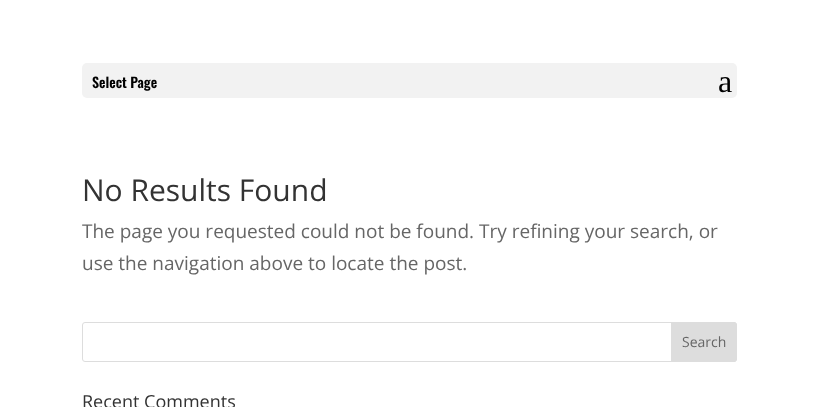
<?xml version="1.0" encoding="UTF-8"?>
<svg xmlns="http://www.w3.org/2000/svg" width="819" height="407">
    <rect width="100%" height="100%" fill="#FFFFFF"/>
    <rect x="82" y="63" width="655" height="35" rx="5" fill="#F2F2F2"/>
    <text x="92" y="88" font-family="Oswald" font-size="14" font-weight="600" fill="#000000">Select Page</text>
    <text x="718" y="92" font-family="Liberation Serif" font-size="32" fill="#000000">a</text>
    <text x="82" y="201" font-family="Open Sans" font-size="30" fill="#333333">No Results Found</text>
    <text font-family="Open Sans" font-size="19" fill="#666666">
        <tspan x="82" y="238">The page you requested could not be found. Try refining your search, or</tspan>
        <tspan x="82" y="270">use the navigation above to locate the post.</tspan>
    </text>
    <rect x="82.5" y="322.5" width="654" height="39" rx="2.5" fill="none" stroke="#DDDDDD"/>
    <path d="M 671.5 322.5 H 734 C 735.5 322.5 736.5 323.5 736.5 325 V 359 C 736.5 360.5 735.5 361.5 734 361.5 H 671.5 Z" fill="#DDDDDD" stroke="#DDDDDD"/>
    <text x="682" y="347" font-family="Open Sans" font-size="14" fill="#666666">Search</text>
    <text x="82" y="408" font-family="Open Sans" font-size="18" fill="#333333">Recent Comments</text>
</svg>
